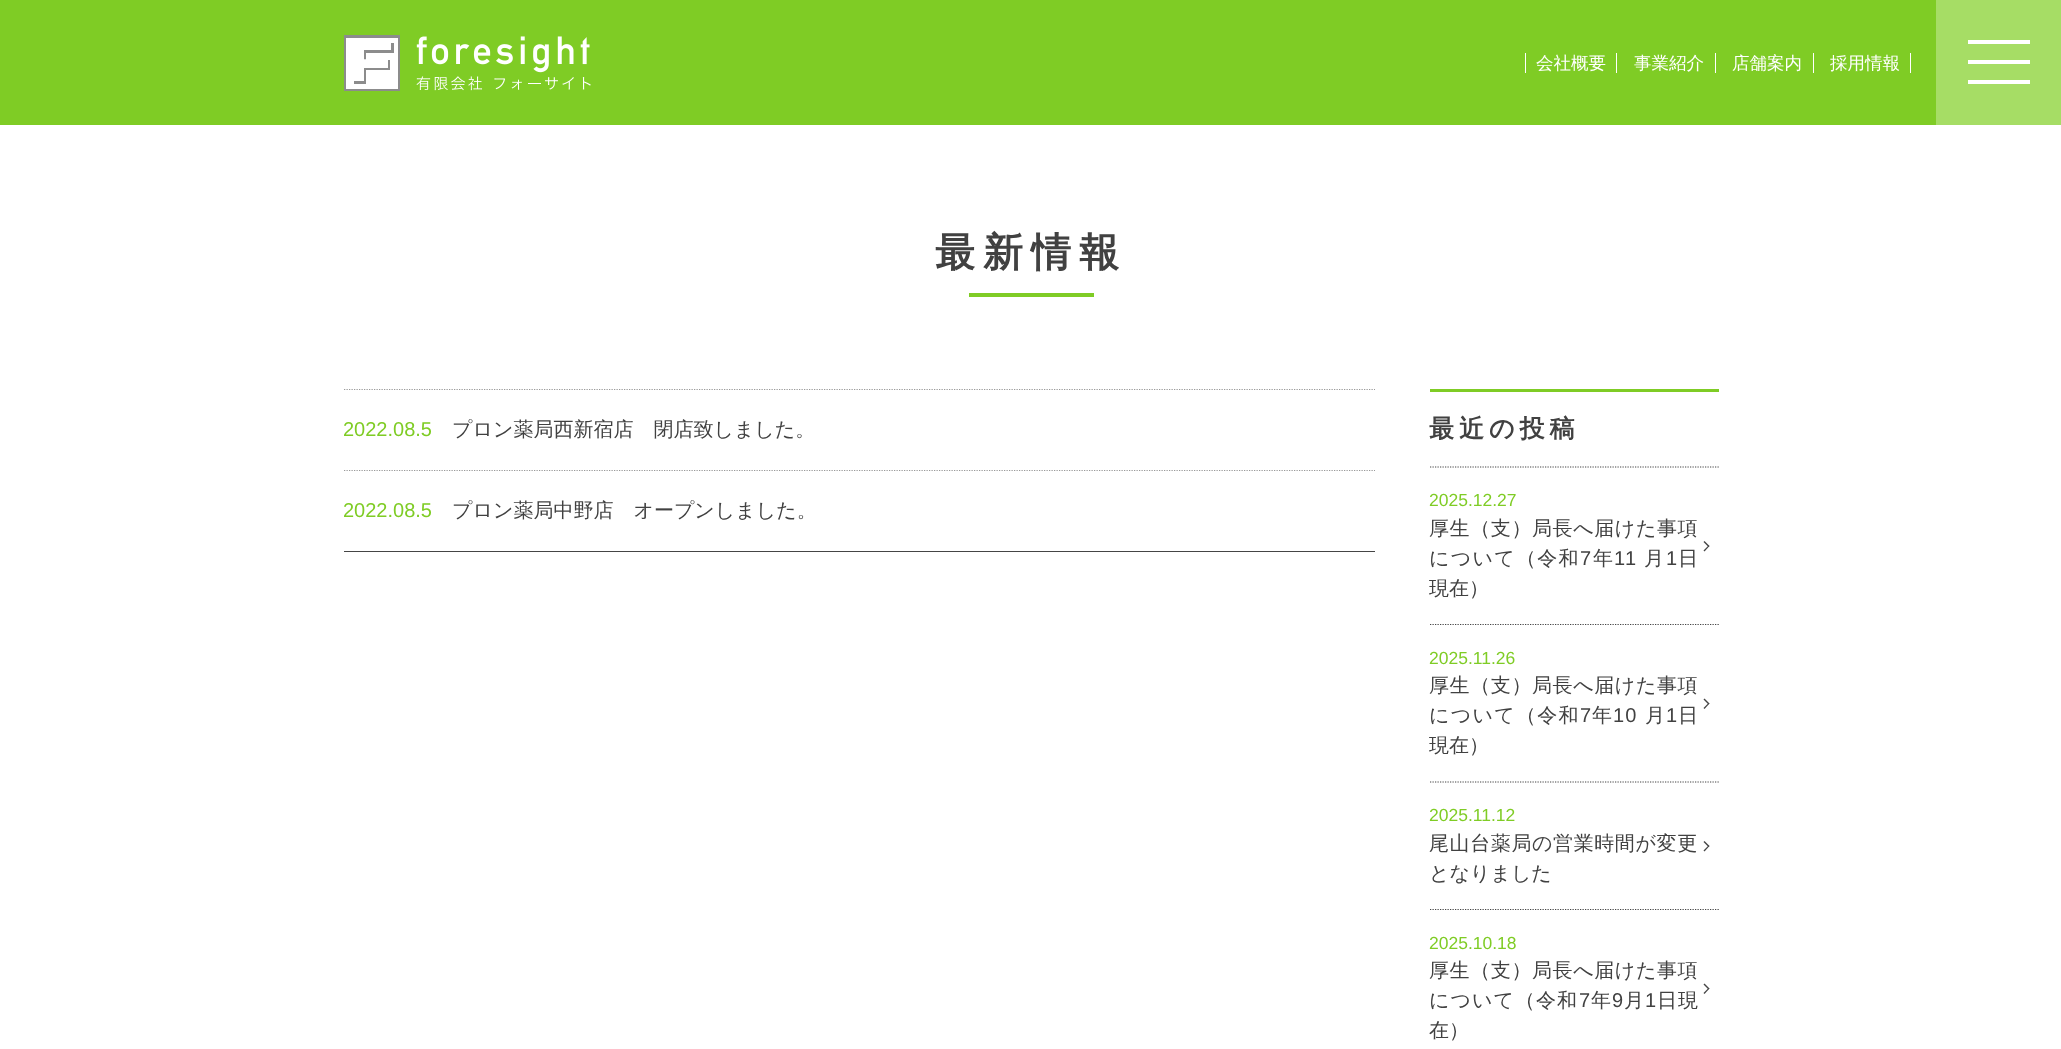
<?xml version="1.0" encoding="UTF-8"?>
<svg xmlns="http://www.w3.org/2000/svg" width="2061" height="1049">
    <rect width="100%" height="100%" fill="#FFFFFF"/>
    <rect x="0" y="0" width="1936" height="125" fill="#7FCC25"/>
    <image x="344" y="35" width="247" height="56" href="img_01.png"/>
    <text x="1536" y="69" font-family="WenQuanYi Zen Hei" font-size="17.5" font-weight="500" fill="#FFFFFF">会社概要</text>
    <rect x="1616" y="53" width="1" height="20" fill="#FFFFFF"/>
    <rect x="1525" y="53" width="1" height="20" fill="#FFFFFF"/>
    <text x="1634" y="69" font-family="WenQuanYi Zen Hei" font-size="17.5" font-weight="500" fill="#FFFFFF">事業紹介</text>
    <rect x="1715" y="53" width="1" height="20" fill="#FFFFFF"/>
    <text x="1732" y="69" font-family="WenQuanYi Zen Hei" font-size="17.5" font-weight="500" fill="#FFFFFF">店舗案内</text>
    <rect x="1813" y="53" width="1" height="20" fill="#FFFFFF"/>
    <text x="1830" y="69" font-family="WenQuanYi Zen Hei" font-size="17.5" font-weight="500" fill="#FFFFFF">採用情報</text>
    <rect x="1910" y="53" width="1" height="20" fill="#FFFFFF"/>
    <rect x="1936" y="0" width="125" height="125" fill="#A6DD65"/>
    <rect x="1968" y="60" width="62" height="4" fill="#FFFFFF"/>
    <rect x="1968" y="40" width="62" height="4" fill="#FFFFFF"/>
    <rect x="1968" y="80" width="62" height="4" fill="#FFFFFF"/>
    <text x="935" y="266" font-family="WenQuanYi Zen Hei" font-size="40" font-weight="700" letter-spacing="8" fill="#414141">最新情報</text>
    <rect x="969" y="293" width="125" height="4" fill="#7FCC25"/>
    <path d="M 344 389.5 H 1375" fill="none" stroke="#999999" stroke-width="1.2" stroke-dasharray="1.25 1.25"/>
    <text x="343" y="436" font-family="Liberation Sans" font-size="20" fill="#7FCC25">2022.08.5</text>
    <text x="452" y="436" font-family="WenQuanYi Zen Hei" font-size="20" font-weight="500" fill="#414141">プロン薬局西新宿店　閉店致しました。</text>
    <path d="M 344 470.5 H 1375" fill="none" stroke="#999999" stroke-width="1.2" stroke-dasharray="1.25 1.25"/>
    <text x="343" y="517" font-family="Liberation Sans" font-size="20" fill="#7FCC25">2022.08.5</text>
    <text x="452" y="517" font-family="WenQuanYi Zen Hei" font-size="20" font-weight="500" fill="#414141">プロン薬局中野店　オープンしました。</text>
    <rect x="344" y="551" width="1031" height="1" fill="#454545"/>
    <rect x="1430" y="389" width="289" height="3" fill="#7FCC25"/>
    <text x="1429" y="437" font-family="WenQuanYi Zen Hei" font-size="25" font-weight="700" letter-spacing="5" fill="#414141">最近の投稿</text>
    <path d="M 1430 467 H 1719" fill="none" stroke="#454545" stroke-width="1.2" stroke-dasharray="1.25 1.25"/>
    <text x="1429" y="506" font-family="Liberation Sans" font-size="17.5" fill="#7FCC25">2025.12.27</text>
    <text x="1429" y="535" font-family="WenQuanYi Zen Hei" font-size="20" font-weight="500" letter-spacing="0.6" fill="#414141">厚生（支）局長へ届けた事項</text>
    <text x="1429" y="565" font-family="WenQuanYi Zen Hei" font-size="20" font-weight="500" letter-spacing="1.25" fill="#414141">について（令和</text>
    <text x="1580" y="565" font-family="Liberation Sans" font-size="20" letter-spacing="1.25" fill="#414141">7</text>
    <text x="1593" y="565" font-family="WenQuanYi Zen Hei" font-size="20" font-weight="500" letter-spacing="1.25" fill="#414141">年</text>
    <text x="1614" y="565" font-family="Liberation Sans" font-size="20" letter-spacing="1.25" fill="#414141">11</text>
    <text x="1644" y="565" font-family="WenQuanYi Zen Hei" font-size="20" font-weight="500" letter-spacing="1.25" fill="#414141">月</text>
    <text x="1666" y="565" font-family="Liberation Sans" font-size="20" letter-spacing="1.25" fill="#414141">1</text>
    <text x="1678" y="565" font-family="WenQuanYi Zen Hei" font-size="20" font-weight="500" letter-spacing="1.25" fill="#414141">日</text>
    <text x="1429" y="595" font-family="WenQuanYi Zen Hei" font-size="20" font-weight="500" fill="#414141">現在）</text>
    <path d="M 1703.5 542 L 1704.5 541 L 1709.5 546 L 1708.5 547 Z" fill="#454545"/>
    <path d="M 1703.5 550.5 L 1708.5 545.5 L 1709.5 546 L 1704.5 551.5 Z" fill="#454545"/>
    <path d="M 1430 624.5 H 1719" fill="none" stroke="#454545" stroke-width="1.2" stroke-dasharray="1.25 1.25"/>
    <text x="1429" y="664" font-family="Liberation Sans" font-size="17.5" fill="#7FCC25">2025.11.26</text>
    <text x="1429" y="692" font-family="WenQuanYi Zen Hei" font-size="20" font-weight="500" letter-spacing="0.6" fill="#414141">厚生（支）局長へ届けた事項</text>
    <text x="1429" y="722" font-family="WenQuanYi Zen Hei" font-size="20" font-weight="500" letter-spacing="1.25" fill="#414141">について（令和</text>
    <text x="1580" y="722" font-family="Liberation Sans" font-size="20" letter-spacing="1.25" fill="#414141">7</text>
    <text x="1592" y="722" font-family="WenQuanYi Zen Hei" font-size="20" font-weight="500" letter-spacing="1.25" fill="#414141">年</text>
    <text x="1613" y="722" font-family="Liberation Sans" font-size="20" letter-spacing="1.25" fill="#414141">10</text>
    <text x="1645" y="722" font-family="WenQuanYi Zen Hei" font-size="20" font-weight="500" letter-spacing="1.25" fill="#414141">月</text>
    <text x="1666" y="722" font-family="Liberation Sans" font-size="20" letter-spacing="1.25" fill="#414141">1</text>
    <text x="1678" y="722" font-family="WenQuanYi Zen Hei" font-size="20" font-weight="500" letter-spacing="1.25" fill="#414141">日</text>
    <text x="1429" y="752" font-family="WenQuanYi Zen Hei" font-size="20" font-weight="500" fill="#414141">現在）</text>
    <path d="M 1703.5 699.5 L 1704.5 698.5 L 1709.5 703.5 L 1708.5 704.5 Z" fill="#454545"/>
    <path d="M 1703.5 708 L 1708.5 703 L 1709.5 703.5 L 1704.5 709 Z" fill="#454545"/>
    <path d="M 1430 782 H 1719" fill="none" stroke="#454545" stroke-width="1.2" stroke-dasharray="1.25 1.25"/>
    <text x="1429" y="821" font-family="Liberation Sans" font-size="17.5" fill="#7FCC25">2025.11.12</text>
    <text x="1429" y="850" font-family="WenQuanYi Zen Hei" font-size="20" font-weight="500" letter-spacing="0.6" fill="#414141">尾山台薬局の営業時間が変更</text>
    <text x="1429" y="880" font-family="WenQuanYi Zen Hei" font-size="20" font-weight="500" fill="#414141">となりました</text>
    <path d="M 1703.5 842 L 1704.5 841 L 1709.5 846 L 1708.5 847 Z" fill="#454545"/>
    <path d="M 1703.5 850.5 L 1708.5 845.5 L 1709.5 846 L 1704.5 851.5 Z" fill="#454545"/>
    <path d="M 1430 909.5 H 1719" fill="none" stroke="#454545" stroke-width="1.2" stroke-dasharray="1.25 1.25"/>
    <text x="1429" y="949" font-family="Liberation Sans" font-size="17.5" fill="#7FCC25">2025.10.18</text>
    <text x="1429" y="977" font-family="WenQuanYi Zen Hei" font-size="20" font-weight="500" letter-spacing="0.6" fill="#414141">厚生（支）局長へ届けた事項</text>
    <text x="1429" y="1007" font-family="WenQuanYi Zen Hei" font-size="20" font-weight="500" letter-spacing="1" fill="#414141">について（令和</text>
    <text x="1579" y="1007" font-family="Liberation Sans" font-size="20" letter-spacing="1" fill="#414141">7</text>
    <text x="1591" y="1007" font-family="WenQuanYi Zen Hei" font-size="20" font-weight="500" letter-spacing="1" fill="#414141">年</text>
    <text x="1612" y="1007" font-family="Liberation Sans" font-size="20" letter-spacing="1" fill="#414141">9</text>
    <text x="1624" y="1007" font-family="WenQuanYi Zen Hei" font-size="20" font-weight="500" letter-spacing="1" fill="#414141">月</text>
    <text x="1645" y="1007" font-family="Liberation Sans" font-size="20" letter-spacing="1" fill="#414141">1</text>
    <text x="1657" y="1007" font-family="WenQuanYi Zen Hei" font-size="20" font-weight="500" letter-spacing="1" fill="#414141">日現</text>
    <text x="1429" y="1037" font-family="WenQuanYi Zen Hei" font-size="20" font-weight="500" fill="#414141">在）</text>
    <path d="M 1703.5 984.5 L 1704.5 983.5 L 1709.5 988.5 L 1708.5 989.5 Z" fill="#454545"/>
    <path d="M 1703.5 993 L 1708.5 988 L 1709.5 988.5 L 1704.5 994 Z" fill="#454545"/>
</svg>
